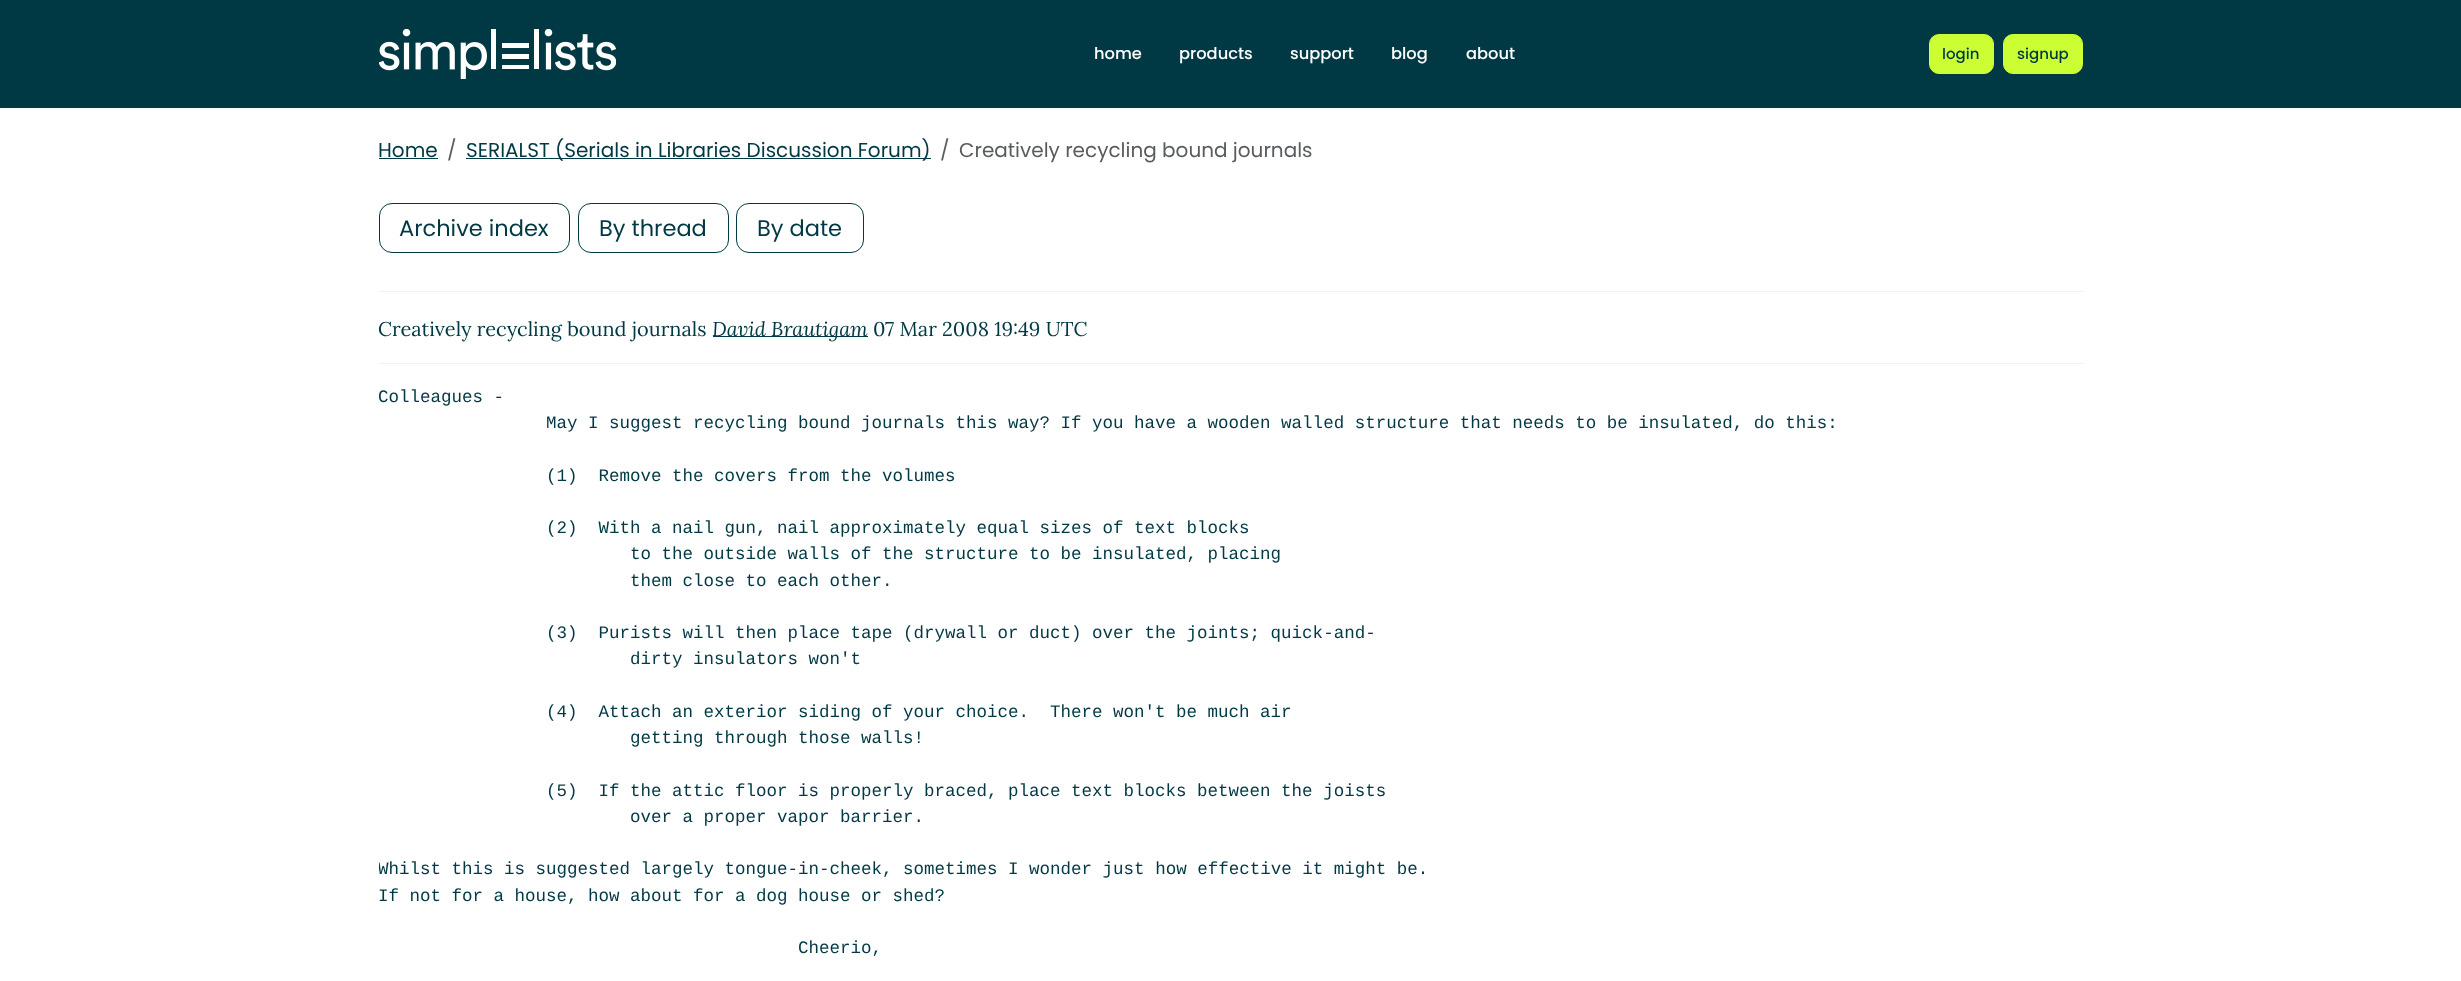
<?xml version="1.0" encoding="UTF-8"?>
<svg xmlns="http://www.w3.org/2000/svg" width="2461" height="981">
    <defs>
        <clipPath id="clip1"><rect x="379" y="384" width="1705" height="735"/></clipPath>
    </defs>
    <rect width="100%" height="100%" fill="#FFFFFF"/>
    <rect x="0" y="0" width="2461" height="108" fill="#003944"/>
    <image x="379" y="29" width="237" height="50" href="img_01.png"/>
    <text x="1094" y="59" font-family="Poppins" font-size="16.25" font-weight="500" fill="#FFFFFF">home</text>
    <text x="1179" y="59" font-family="Poppins" font-size="16.25" font-weight="500" fill="#FFFFFF">products</text>
    <text x="1290" y="59" font-family="Poppins" font-size="16.25" font-weight="500" fill="#FFFFFF">support</text>
    <text x="1391" y="59" font-family="Poppins" font-size="16.25" font-weight="500" fill="#FFFFFF">blog</text>
    <text x="1466" y="59" font-family="Poppins" font-size="16.25" font-weight="500" fill="#FFFFFF">about</text>
    <rect x="1929.5" y="34.5" width="64" height="39" rx="9.5" fill="#CCFF33" stroke="#CCFF33"/>
    <text x="1942" y="59" font-family="Poppins" font-size="15" font-weight="500" fill="#003944">login</text>
    <rect x="2003.5" y="34.5" width="79" height="39" rx="9.5" fill="#CCFF33" stroke="#CCFF33"/>
    <text x="2017" y="59" font-family="Poppins" font-size="15" font-weight="500" fill="#003944">signup</text>
    <text x="378" y="157" font-family="Poppins" font-size="20" fill="#003944">Home</text>
    <rect x="379" y="158" width="59" height="1" fill="#003944"/>
    <text x="447" y="157" font-family="Poppins" font-size="20" fill="#595C5F">/</text>
    <rect x="466" y="158" width="465" height="1" fill="#003944"/>
    <text x="466" y="157" font-family="Poppins" font-size="20" fill="#003944">SERIALST (Serials in Libraries Discussion Forum)</text>
    <text x="940" y="157" font-family="Poppins" font-size="20" fill="#595C5F">/</text>
    <text x="959" y="157" font-family="Poppins" font-size="20" fill="#595C5F">Creatively recycling bound journals</text>
    <rect x="379.5" y="203.5" width="190" height="49" rx="12.5" fill="none" stroke="#003944"/>
    <text x="399" y="236" font-family="Poppins" font-size="22.5" fill="#003944">Archive index</text>
    <rect x="578.5" y="203.5" width="150" height="49" rx="12.5" fill="none" stroke="#003944"/>
    <text x="599" y="236" font-family="Poppins" font-size="22.5" fill="#003944">By thread</text>
    <rect x="736.5" y="203.5" width="127" height="49" rx="12.5" fill="none" stroke="#003944"/>
    <text x="757" y="236" font-family="Poppins" font-size="22.5" fill="#003944">By date</text>
    <rect x="379" y="291" width="1705" height="1" fill="#F2F2F2"/>
    <text x="378" y="336" font-family="Lora" font-size="20" fill="#003944">Creatively recycling bound journals</text>
    <rect x="713" y="336" width="155" height="1" fill="#003944"/>
    <text x="712" y="336" font-family="Lora" font-size="20" font-style="italic" fill="#003944">David Brautigam</text>
    <text x="873" y="336" font-family="Lora" font-size="20" fill="#003944">07 Mar 2008 19:49 UTC</text>
    <rect x="379" y="363" width="1705" height="1" fill="#F2F2F2"/>
    <text x="378" y="402" font-family="Liberation Mono" font-size="17.5" fill="#003944">Colleagues -</text>
    <text x="546" y="428" font-family="Liberation Mono" font-size="17.5" fill="#003944">May I suggest recycling bound journals this way? If you have a wooden walled structure that needs to be insulated, do this:</text>
    <text x="546" y="481" font-family="Liberation Mono" font-size="17.5" fill="#003944" xml:space="preserve">(1)  Remove the covers from the volumes</text>
    <text x="546" y="533" font-family="Liberation Mono" font-size="17.5" fill="#003944" xml:space="preserve">(2)  With a nail gun, nail approximately equal sizes of text blocks</text>
    <text font-family="Liberation Mono" font-size="17.5" fill="#003944">
        <tspan x="630" y="559">to the outside walls of the structure to be insulated, placing</tspan>
        <tspan x="630" y="586">them close to each other.</tspan>
    </text>
    <text x="546" y="638" font-family="Liberation Mono" font-size="17.5" fill="#003944" xml:space="preserve">(3)  Purists will then place tape (drywall or duct) over the joints; quick-and-</text>
    <text x="630" y="664" font-family="Liberation Mono" font-size="17.5" fill="#003944">dirty insulators won't</text>
    <text x="546" y="717" font-family="Liberation Mono" font-size="17.5" fill="#003944" xml:space="preserve">(4)  Attach an exterior siding of your choice.  There won't be much air</text>
    <text x="630" y="743" font-family="Liberation Mono" font-size="17.5" fill="#003944">getting through those walls!</text>
    <text x="546" y="796" font-family="Liberation Mono" font-size="17.5" fill="#003944" xml:space="preserve">(5)  If the attic floor is properly braced, place text blocks between the joists</text>
    <text x="630" y="822" font-family="Liberation Mono" font-size="17.5" fill="#003944">over a proper vapor barrier.</text>
    <g clip-path="url(#clip1)">
        <text x="378" y="874" font-family="Liberation Mono" font-size="17.5" fill="#003944">Whilst this is suggested largely tongue-in-cheek, sometimes I wonder just how effective it might be.</text>
    </g>
    <text x="378" y="901" font-family="Liberation Mono" font-size="17.5" fill="#003944">If not for a house, how about for a dog house or shed?</text>
    <text x="798" y="953" font-family="Liberation Mono" font-size="17.5" fill="#003944">Cheerio,</text>
</svg>
